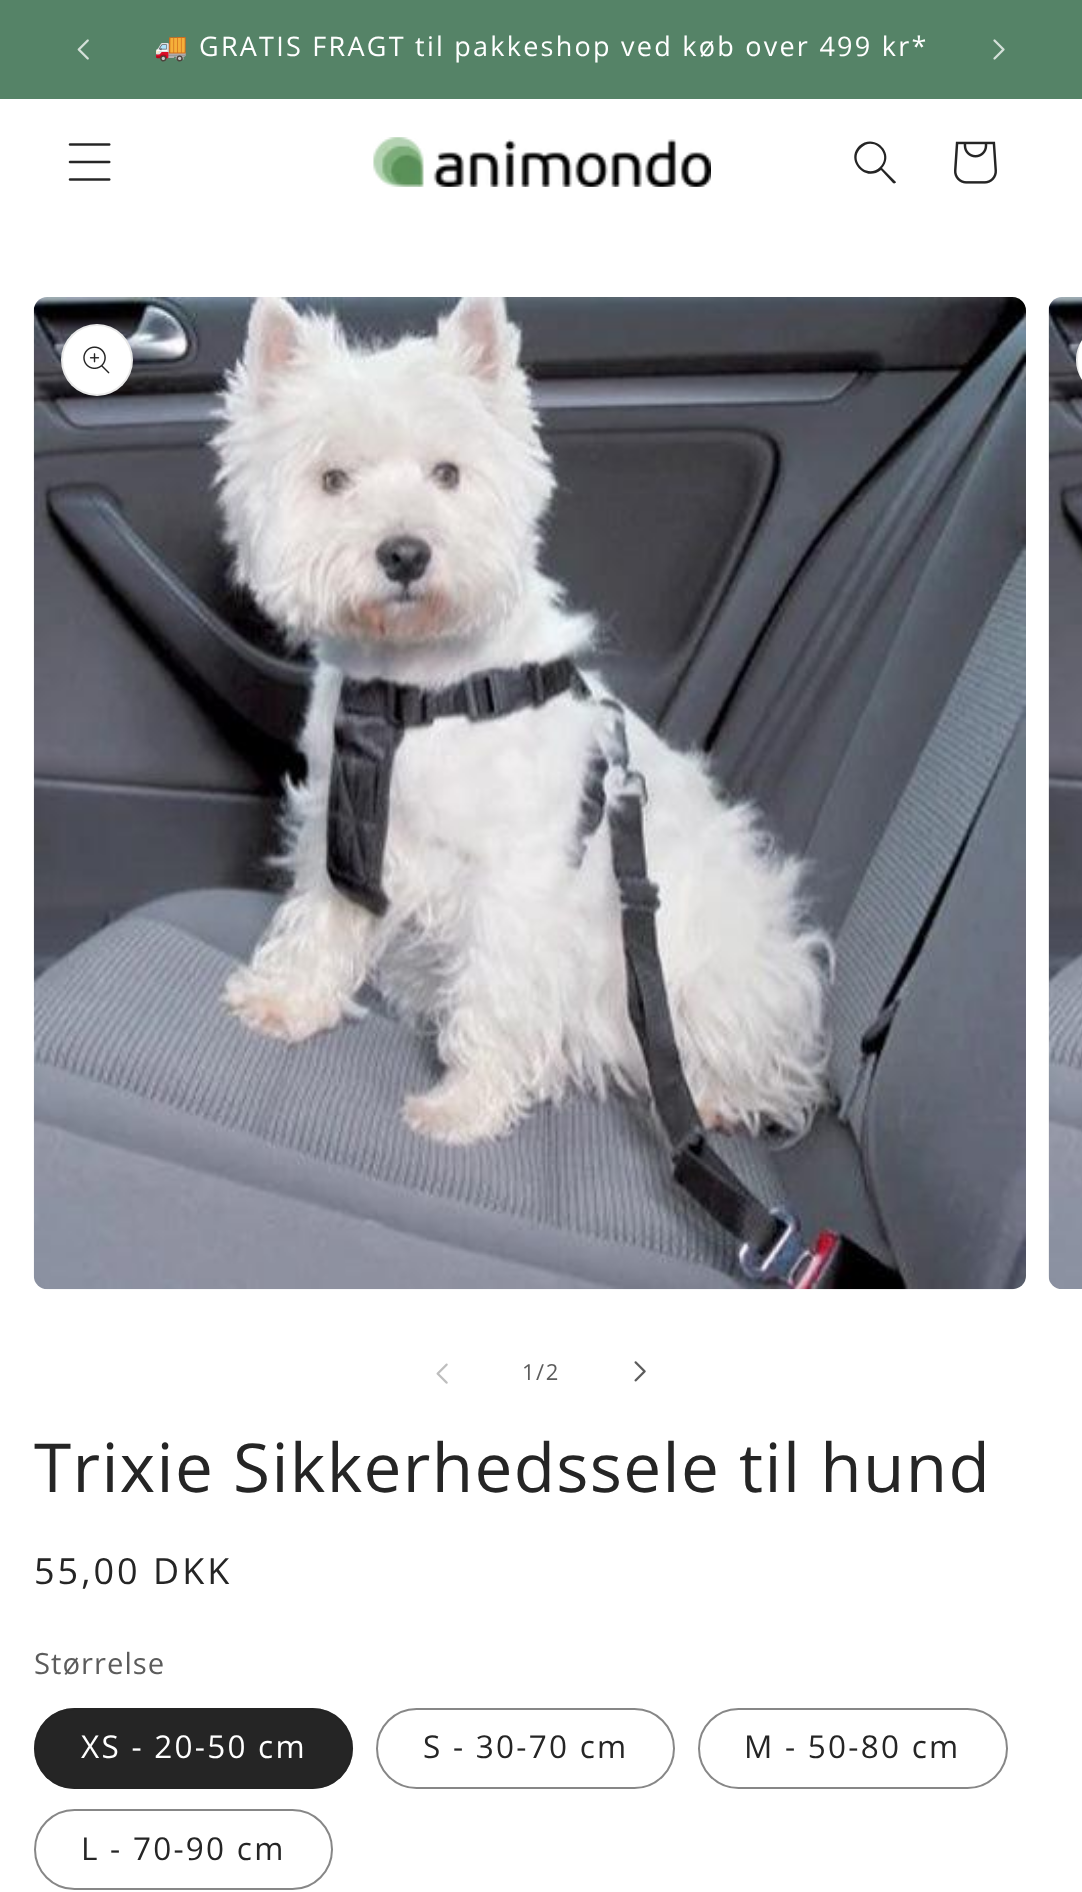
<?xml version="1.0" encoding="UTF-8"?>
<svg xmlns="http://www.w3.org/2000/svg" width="1082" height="1892">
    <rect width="100%" height="100%" fill="#FFFFFF"/>
    <rect x="0" y="0" width="1082" height="99" fill="#558367"/>
    <image x="77" y="39" width="12" height="21" href="img_01.png"/>
    <text x="154" y="56" font-family="Noto Color Emoji" font-size="27" letter-spacing="2.25" fill="#FFFFFF">🚚</text>
    <text x="199" y="56" font-family="Open Sans" font-size="27" letter-spacing="2.25" fill="#FFFFFF">GRATIS FRAGT til pakkeshop ved køb over 499 kr*</text>
    <image x="993" y="39" width="12" height="21" href="img_02.png"/>
    <image x="68" y="143" width="43" height="38" href="img_03.png"/>
    <image x="373" y="137" width="338" height="50" href="img_04.png"/>
    <path d="M 880 167 C 867 180 848 160 861 148 C 873 135 893 154 880 167 M 881 170 C 865 183 845 160 859 146 C 874 132 896 153 882 168 L 896 182 C 896 183 894 184 893 183 Z" fill="#252525" fill-rule="evenodd"/>
    <image x="954" y="141" width="43" height="43" href="img_05.png"/>
    <image x="33" y="297" width="993" height="993" href="img_06.png"/>
    <circle cx="97" cy="360" r="36" fill="#FFFFFF"/>
    <circle cx="97" cy="360" r="35" fill="none" stroke="#252525" stroke-opacity="0.1" stroke-width="2"/>
    <image x="83" y="346" width="27" height="28" href="img_07.png"/>
    <image x="1048" y="297" width="34" height="992" href="img_08.png"/>
    <path d="M 1112 324 H 1082 V 396 H 1112 C 1092 396 1076 380 1076 360 C 1076 340 1092 324 1112 324 Z" fill="#FFFFFF"/>
    <rect x="1077" y="325" width="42" height="70" rx="35" fill="none" stroke="#252525" stroke-opacity="0.1" stroke-width="2"/>
    <image x="436" y="1363" width="12" height="21" href="img_09.png"/>
    <text x="522" y="1380" font-family="Open Sans" font-size="22" letter-spacing="1.5" fill="#5C5C5C">1/2</text>
    <image x="634" y="1361" width="12" height="21" href="img_10.png"/>
    <text x="34" y="1492" font-family="Open Sans" font-size="67.5" letter-spacing="1.35" fill="#252525">Trixie Sikkerhedssele til hund</text>
    <text x="34" y="1584" font-family="Open Sans" font-size="36" letter-spacing="3" fill="#252525">55,00 DKK</text>
    <text x="34" y="1674" font-family="Open Sans" font-size="29.25" letter-spacing="1" fill="#5C5C5C">Størrelse</text>
    <rect x="34" y="1708" width="319" height="81" rx="40.5" fill="#252525"/>
    <rect x="35" y="1709" width="317" height="79" rx="39.5" fill="none" stroke="#252525" stroke-opacity="0.55" stroke-width="2"/>
    <text x="81" y="1758" font-family="Open Sans" font-size="31.5" letter-spacing="2.25" fill="#FFFFFF">XS - 20-50 cm</text>
    <rect x="377" y="1709" width="297" height="79" rx="39.5" fill="none" stroke="#878787" stroke-width="2"/>
    <text x="423" y="1758" font-family="Open Sans" font-size="31.5" letter-spacing="2.25" fill="#252525">S - 30-70 cm</text>
    <rect x="699" y="1709" width="308" height="79" rx="39.5" fill="none" stroke="#878787" stroke-width="2"/>
    <text x="744" y="1758" font-family="Open Sans" font-size="31.5" letter-spacing="2.25" fill="#252525">M - 50-80 cm</text>
    <rect x="35" y="1810" width="297" height="79" rx="39.5" fill="none" stroke="#878787" stroke-width="2"/>
    <text x="81" y="1860" font-family="Open Sans" font-size="31.5" letter-spacing="2.25" fill="#252525">L - 70-90 cm</text>
</svg>
